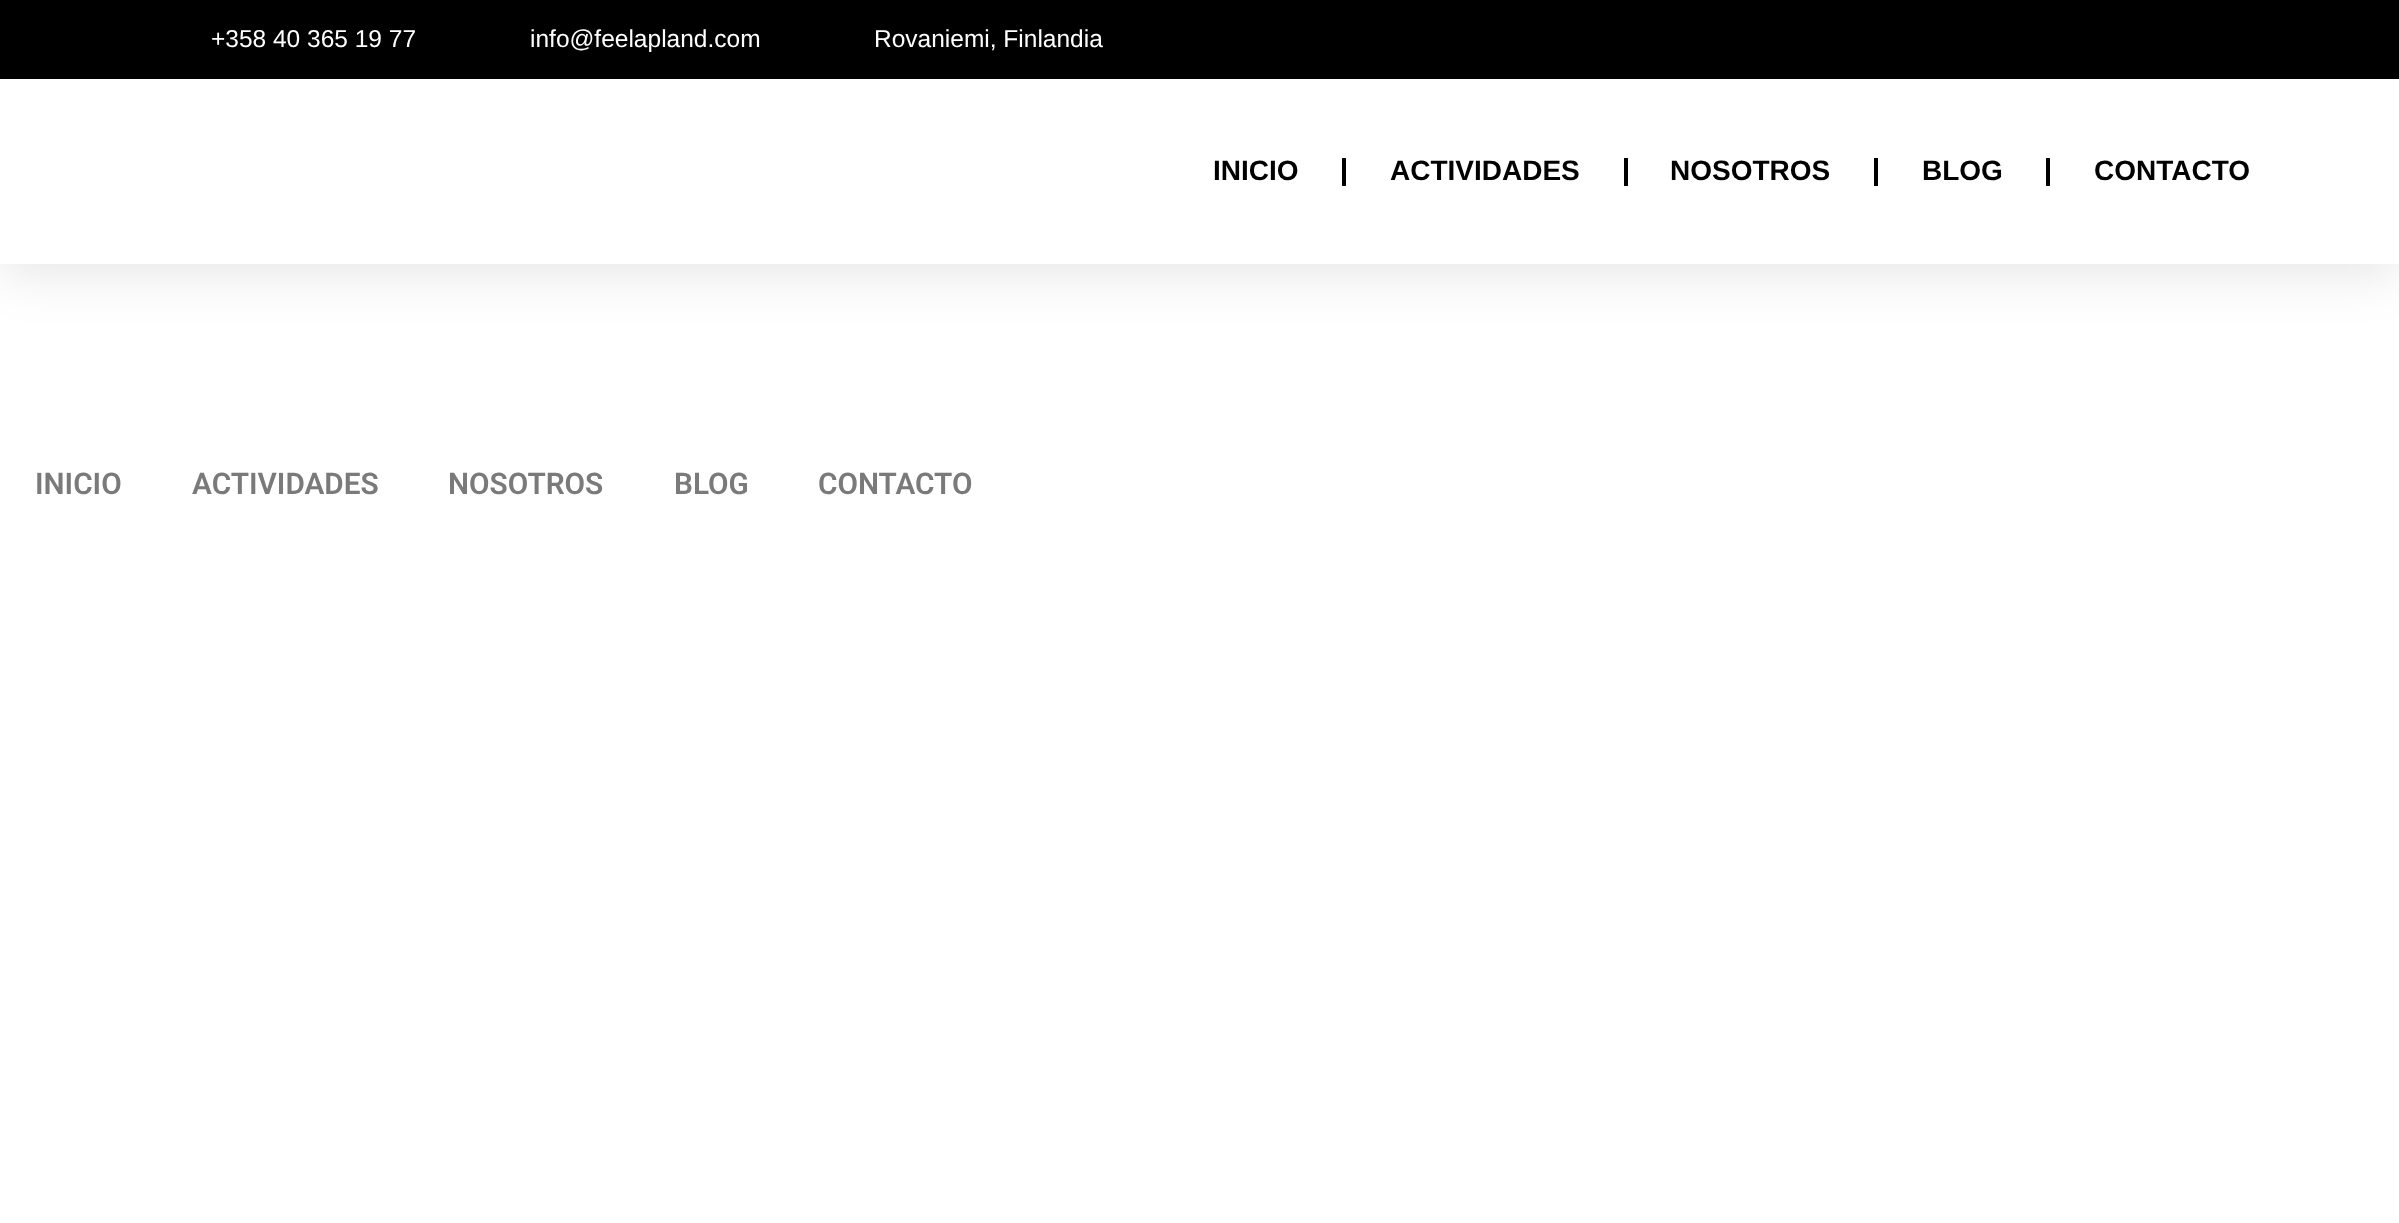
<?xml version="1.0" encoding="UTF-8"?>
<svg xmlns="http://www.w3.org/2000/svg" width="2399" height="1223">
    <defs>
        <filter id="blur1" x="-50%" y="-200%" width="200%" height="500%"><feGaussianBlur stdDeviation="26"/></filter>
    </defs>
    <rect width="100%" height="100%" fill="#FFFFFF"/>
    <rect x="0" y="9" width="2399" height="264" fill="#000000" fill-opacity="0.1" filter="url(#blur1)"/>
    <rect x="0" y="0" width="2399" height="79" fill="#000000"/>
    <text x="211" y="47" font-family="Liberation Sans" font-size="24.5" fill="#FFFFFF">+358 40 365 19 77</text>
    <text x="530" y="47" font-family="Liberation Sans" font-size="24.5" fill="#FFFFFF">info@feelapland.com</text>
    <text x="874" y="47" font-family="Liberation Sans" font-size="24.5" fill="#FFFFFF">Rovaniemi, Finlandia</text>
    <rect x="0" y="79" width="2399" height="185" fill="#FFFFFF"/>
    <text x="1213" y="180" font-family="Liberation Sans" font-size="28" font-weight="700" fill="#000000">INICIO</text>
    <rect x="1342" y="158" width="4" height="28" fill="#000000"/>
    <text x="1390" y="180" font-family="Liberation Sans" font-size="28" font-weight="700" fill="#000000">ACTIVIDADES</text>
    <rect x="1624" y="158" width="4" height="28" fill="#000000"/>
    <text x="1670" y="180" font-family="Liberation Sans" font-size="28" font-weight="700" fill="#000000">NOSOTROS</text>
    <rect x="1874" y="158" width="4" height="28" fill="#000000"/>
    <text x="1922" y="180" font-family="Liberation Sans" font-size="28" font-weight="700" fill="#000000">BLOG</text>
    <rect x="2046" y="158" width="4" height="28" fill="#000000"/>
    <text x="2094" y="180" font-family="Liberation Sans" font-size="28" font-weight="700" fill="#000000">CONTACTO</text>
    <text x="35" y="494" font-family="Roboto" font-size="29.75" font-weight="600" fill="#7A7A7A">INICIO</text>
    <text x="192" y="494" font-family="Roboto" font-size="29.75" font-weight="600" fill="#7A7A7A">ACTIVIDADES</text>
    <text x="448" y="494" font-family="Roboto" font-size="29.75" font-weight="600" fill="#7A7A7A">NOSOTROS</text>
    <text x="674" y="494" font-family="Roboto" font-size="29.75" font-weight="600" fill="#7A7A7A">BLOG</text>
    <text x="818" y="494" font-family="Roboto" font-size="29.75" font-weight="600" fill="#7A7A7A">CONTACTO</text>
</svg>
